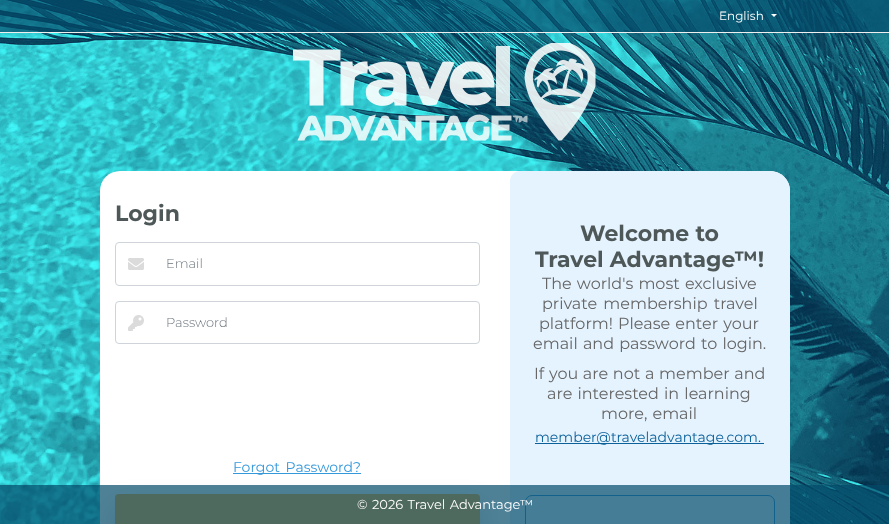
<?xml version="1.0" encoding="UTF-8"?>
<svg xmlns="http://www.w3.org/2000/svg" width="889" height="524">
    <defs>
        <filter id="blur1" x="-50%" y="-200%" width="200%" height="500%"><feGaussianBlur stdDeviation="14"/></filter>
    </defs>
    <rect width="100%" height="100%" fill="#FFFFFF"/>
    <image x="0" y="0" width="889" height="524" href="img_01.png"/>
    <rect x="0" y="0" width="889" height="32" fill="#034A6A" fill-opacity="0.7"/>
    <rect x="0" y="32" width="889" height="1" fill="#EFEFEF"/>
    <text x="719" y="20" font-family="Montserrat" font-size="12" fill="#FFFFFF">English</text>
    <path d="M 771 14 H 777 L 774 17 Z" fill="#FFFFFF"/>
    <image x="293" y="43" width="303" height="98" href="img_02.png"/>
    <rect x="100" y="171" width="690" height="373" rx="20" fill="#FFFFFF"/>
    <text x="115" y="221" font-family="Montserrat" font-size="22" font-weight="700" fill="#4F5858">Login</text>
    <rect x="115.5" y="242.5" width="364" height="43" rx="3.5" fill="none" stroke="#CED4DA"/>
    <image x="128" y="258" width="16" height="12" href="img_03.png"/>
    <text x="166" y="268" font-family="Montserrat" font-size="13" font-weight="300" fill="#6C757D">Email</text>
    <rect x="115.5" y="301.5" width="364" height="42" rx="3.5" fill="none" stroke="#CED4DA"/>
    <image x="128" y="315" width="16" height="16" href="img_04.png"/>
    <text x="166" y="327" font-family="Montserrat" font-size="13" font-weight="300" fill="#6C757D">Password</text>
    <rect x="115" y="507" width="365" height="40" rx="4" fill="#000000" fill-opacity="0.16" filter="url(#blur1)"/>
    <rect x="233" y="473" width="128" height="1" fill="#3498DB"/>
    <text x="233" y="472" word-spacing="2" font-family="Montserrat" font-size="14" fill="#3498DB">Forgot Password?</text>
    <rect x="115" y="494" width="365" height="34" rx="4" fill="#FFB142"/>
    <path d="M 520 171 H 770 C 781 171 790 180 790 191 V 524 C 790 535 781 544 770 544 H 520 C 514.5 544 510 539.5 510 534 V 181 C 510 175.5 514.5 171 520 171 Z" fill="#E5F3FF"/>
    <text x="580" y="241" font-family="Montserrat" font-size="22" font-weight="700" fill="#4F5858">Welcome to</text>
    <text x="535" y="267" font-family="Montserrat" font-size="22" font-weight="700" fill="#4F5858">Travel Advantage™!</text>
    <text font-family="Montserrat" font-size="16" fill="#666666">
        <tspan x="542" y="289" word-spacing="1">The world's most exclusive</tspan>
        <tspan x="542" y="309" word-spacing="2">private membership travel</tspan>
    </text>
    <text x="539" y="329" word-spacing="1" font-family="Montserrat" font-size="16" fill="#666666">platform! Please enter your</text>
    <text x="533" y="349" word-spacing="1" font-family="Montserrat" font-size="16" fill="#666666">email and password to login.</text>
    <text x="534" y="379" word-spacing="0.5" font-family="Montserrat" font-size="16" fill="#666666">If you are not a member and</text>
    <text x="547" y="399" word-spacing="1" font-family="Montserrat" font-size="16" fill="#666666">are interested in learning</text>
    <text x="601" y="419" word-spacing="1" font-family="Montserrat" font-size="16" fill="#666666">more, email</text>
    <rect x="535" y="443" width="229" height="1" fill="#0C619A"/>
    <text x="535" y="442" font-family="Montserrat" font-size="14" fill="#0C619A">member@traveladvantage.com.</text>
    <rect x="525.5" y="495.5" width="249" height="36" rx="6.5" fill="none" stroke="#3498DB"/>
    <rect x="0" y="485" width="889" height="39" fill="#034A6A" fill-opacity="0.7"/>
    <text x="357" y="509" word-spacing="1" font-family="Montserrat" font-size="13" fill="#FFFFFF">© 2026 Travel Advantage™</text>
</svg>
